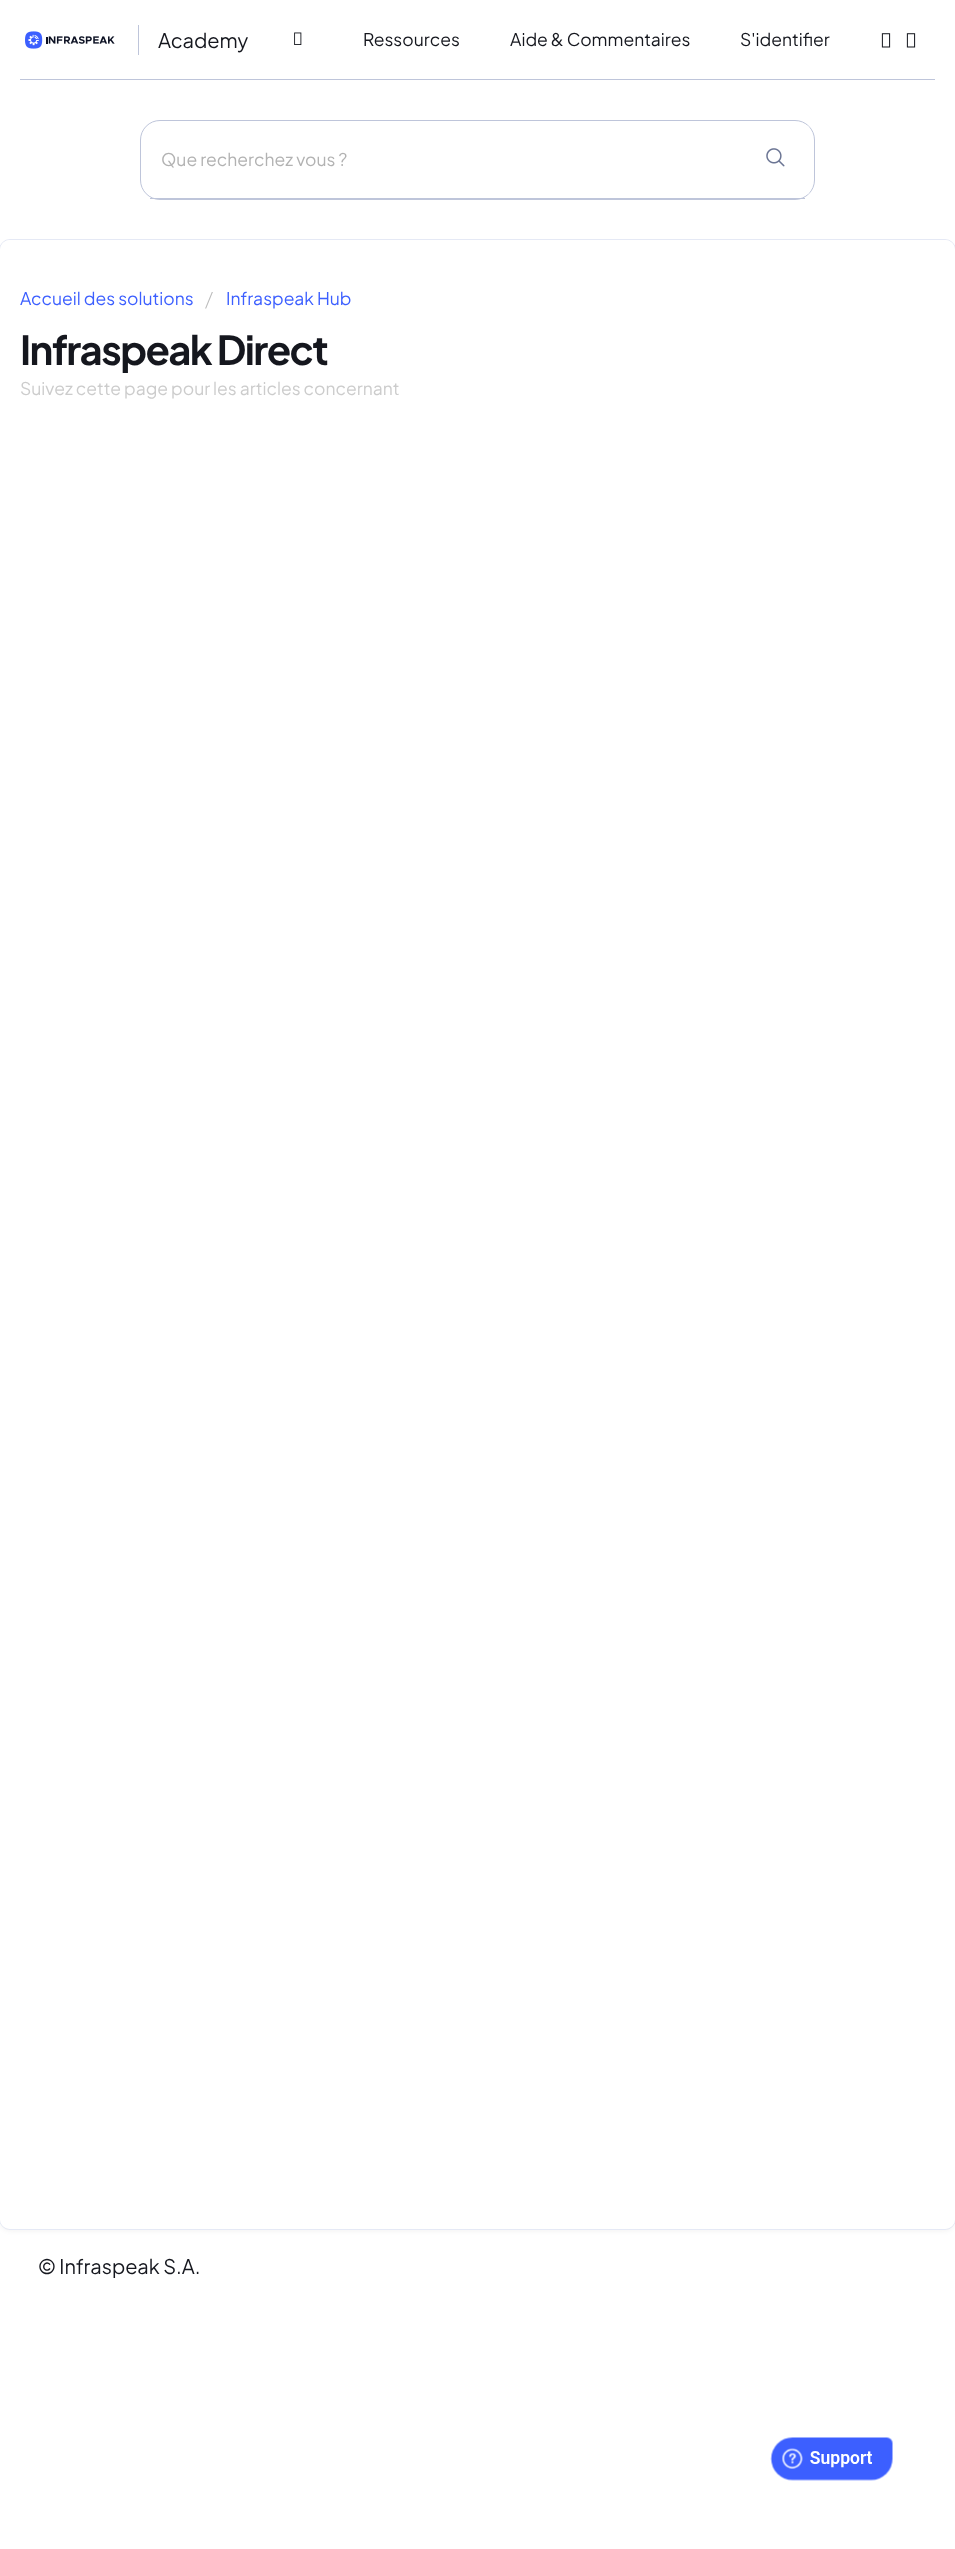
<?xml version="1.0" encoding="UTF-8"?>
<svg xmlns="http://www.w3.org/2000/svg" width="955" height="2549">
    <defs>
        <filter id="blur1" x="-50%" y="-200%" width="200%" height="500%"><feGaussianBlur stdDeviation="2.5"/></filter>
    </defs>
    <rect width="100%" height="100%" fill="#FFFFFF"/>
    <image x="25" y="31" width="90" height="18" href="img_01.png"/>
    <rect x="138" y="25" width="1" height="30" fill="#BEC5DA"/>
    <text x="158" y="48" font-family="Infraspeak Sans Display" font-size="20" fill="#15171E">Academy</text>
    <image x="294" y="32" width="8" height="13" href="img_02.png"/>
    <text x="363" y="46" font-family="Infraspeak Sans Display" font-size="17.5" fill="#15171E">Ressources</text>
    <text x="510" y="46" font-family="Infraspeak Sans Display" font-size="17.5" fill="#15171E">Aide &amp; Commentaires</text>
    <text x="740" y="46" font-family="Infraspeak Sans Display" font-size="17.5" fill="#15171E">S'identifier</text>
    <image x="881" y="33" width="10" height="15" href="img_03.png"/>
    <image x="906" y="33" width="10" height="15" href="img_03.png"/>
    <rect x="20" y="79" width="915" height="1" fill="#BEC5DA"/>
    <rect x="140.5" y="120.5" width="674" height="79" rx="19.5" fill="none" stroke="#BEC5DA"/>
    <rect x="150" y="198" width="655" height="1" fill="#BEC5DA"/>
    <text x="161" y="166" font-family="Infraspeak Sans Display" font-size="17.5" fill="#B2B2B2">Que recherchez vous ?</text>
    <rect x="740" y="125" width="70" height="70" rx="5" fill="#FFFFFF"/>
    <image x="766" y="148" width="19" height="19" href="img_04.png"/>
    <rect x="0" y="243" width="955" height="1988" rx="10" fill="#000000" fill-opacity="0.05" filter="url(#blur1)"/>
    <rect x="-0.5" y="239.5" width="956" height="1990" rx="10.5" fill="none" stroke="#E5E9F5"/>
    <rect x="0" y="240" width="955" height="1989" rx="10" fill="#FFFFFF"/>
    <text x="20" y="305" font-family="Infraspeak Sans Display" font-size="17.5" fill="#3C5FFF">Accueil des solutions</text>
    <text x="205" y="306" font-family="Infraspeak Sans Display" font-size="20" font-weight="200" fill="#BBBBBB">/</text>
    <text x="226" y="305" font-family="Infraspeak Sans Display" font-size="17.5" fill="#3C5FFF">Infraspeak Hub</text>
    <text x="20" y="365" font-family="Infraspeak Sans Display" font-size="40" font-weight="700" letter-spacing="-1.6" fill="#15171E">Infraspeak Direct</text>
    <text x="20" y="395" font-family="Infraspeak Sans Display" font-size="17.5" fill="#CCCCCC">Suivez cette page pour les articles concernant</text>
    <text x="38" y="2274" font-family="Infraspeak Sans Display" font-size="20" fill="#15171E">© Infraspeak S.A.</text>
    <image x="770" y="2437" width="123" height="44" href="img_05.png"/>
</svg>
